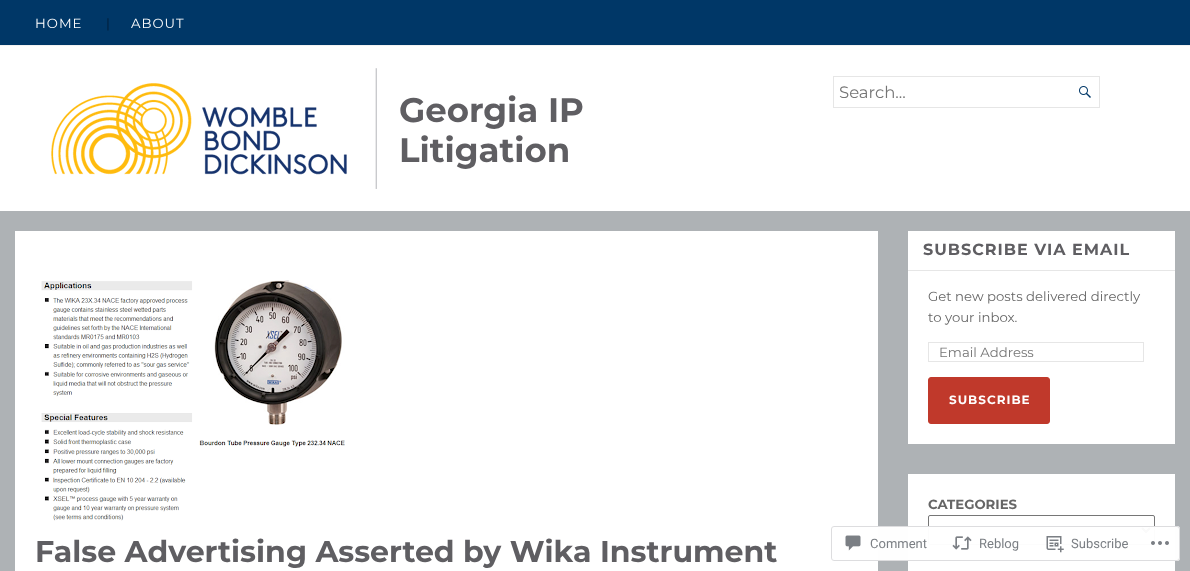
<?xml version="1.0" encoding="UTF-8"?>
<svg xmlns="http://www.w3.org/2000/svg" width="1190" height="571">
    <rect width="100%" height="100%" fill="#AEB2B5"/>
    <rect x="0" y="0" width="1190" height="45" fill="#003767"/>
    <text x="35" y="28" font-family="Montserrat" font-size="13.25" letter-spacing="1" fill="#FFFFFF">HOME</text>
    <text x="106" y="28" font-family="Montserrat" font-size="13.25" letter-spacing="1" fill="#001B33">|</text>
    <text x="131" y="28" font-family="Montserrat" font-size="13.25" letter-spacing="1" fill="#FFFFFF">ABOUT</text>
    <rect x="0" y="46" width="1190" height="165" fill="#FFFFFF"/>
    <rect x="0" y="45" width="1190" height="1" fill="#F2F2F2"/>
    <rect x="833.5" y="76.5" width="266" height="31" fill="none" stroke="#E6E6E6"/>
    <text x="839" y="98" font-family="Montserrat" font-size="16.5" fill="#757575">Search...</text>
    <image x="1079" y="86" width="12" height="12" href="img_01.png"/>
    <image x="51" y="68" width="326" height="121" href="img_02.png"/>
    <text font-family="Montserrat" font-size="34" font-weight="700" fill="#5F5E62">
        <tspan x="399" y="122">Georgia IP</tspan>
        <tspan x="399" y="162">Litigation</tspan>
    </text>
    <rect x="908" y="231" width="267" height="213" fill="#FFFFFF"/>
    <rect x="908" y="270" width="267" height="1" fill="#E6E6E6"/>
    <text x="923" y="255" font-family="Montserrat" font-size="16" font-weight="700" letter-spacing="1" fill="#5F5E62">SUBSCRIBE VIA EMAIL</text>
    <text font-family="Montserrat" font-size="13.25" fill="#666666">
        <tspan x="928" y="301">Get new posts delivered directly</tspan>
        <tspan x="928" y="322">to your inbox.</tspan>
    </text>
    <rect x="928.5" y="342.5" width="215" height="19" fill="none" stroke="#E6E6E6"/>
    <text x="939" y="357" font-family="Montserrat" font-size="13.25" fill="#757575">Email Address</text>
    <rect x="928.5" y="377.5" width="121" height="46" rx="2.5" fill="#C0392B" stroke="#C0392B"/>
    <text x="949" y="404" font-family="Montserrat" font-size="12" font-weight="700" letter-spacing="1" fill="#FFFFFF">SUBSCRIBE</text>
    <rect x="908" y="474" width="267" height="97" fill="#FFFFFF"/>
    <text x="928" y="509" font-family="Montserrat" font-size="13.25" font-weight="700" fill="#666666">CATEGORIES</text>
    <rect x="928.5" y="515.5" width="226" height="29" rx="1.5" fill="none" stroke="#767676"/>
    <path d="M 1142 528 L 1146 532 L 1150 528" fill="none" stroke="#000000" stroke-width="2"/>
    <rect x="15" y="231" width="863" height="340" fill="#FFFFFF"/>
    <image x="41" y="280" width="304" height="241" href="img_03.png"/>
    <text x="35" y="562" font-family="Montserrat" font-size="30" font-weight="700" fill="#5F5E62">False Advertising Asserted by Wika Instrument</text>
    <rect x="831" y="526" width="349" height="35" rx="3" fill="#FFFFFF" fill-opacity="0.98"/>
    <rect x="831.5" y="526.5" width="348" height="34" rx="2.5" fill="none" stroke="#DCDCDE" stroke-opacity="0.98"/>
    <image x="845" y="535" width="16" height="16" href="img_04.png"/>
    <text x="870" y="548" font-family="Roboto" font-size="13" fill="#7B7F84">Comment</text>
    <image x="952" y="536" width="20" height="14" href="img_05.png"/>
    <text x="979" y="548" font-family="Roboto" font-size="13" fill="#7B7F84">Reblog</text>
    <image x="1046" y="536" width="18" height="17" href="img_06.png"/>
    <text x="1071" y="548" font-family="Roboto" font-size="13" fill="#7B7F84">Subscribe</text>
    <image x="1151" y="541" width="18" height="4" href="img_07.png"/>
</svg>
